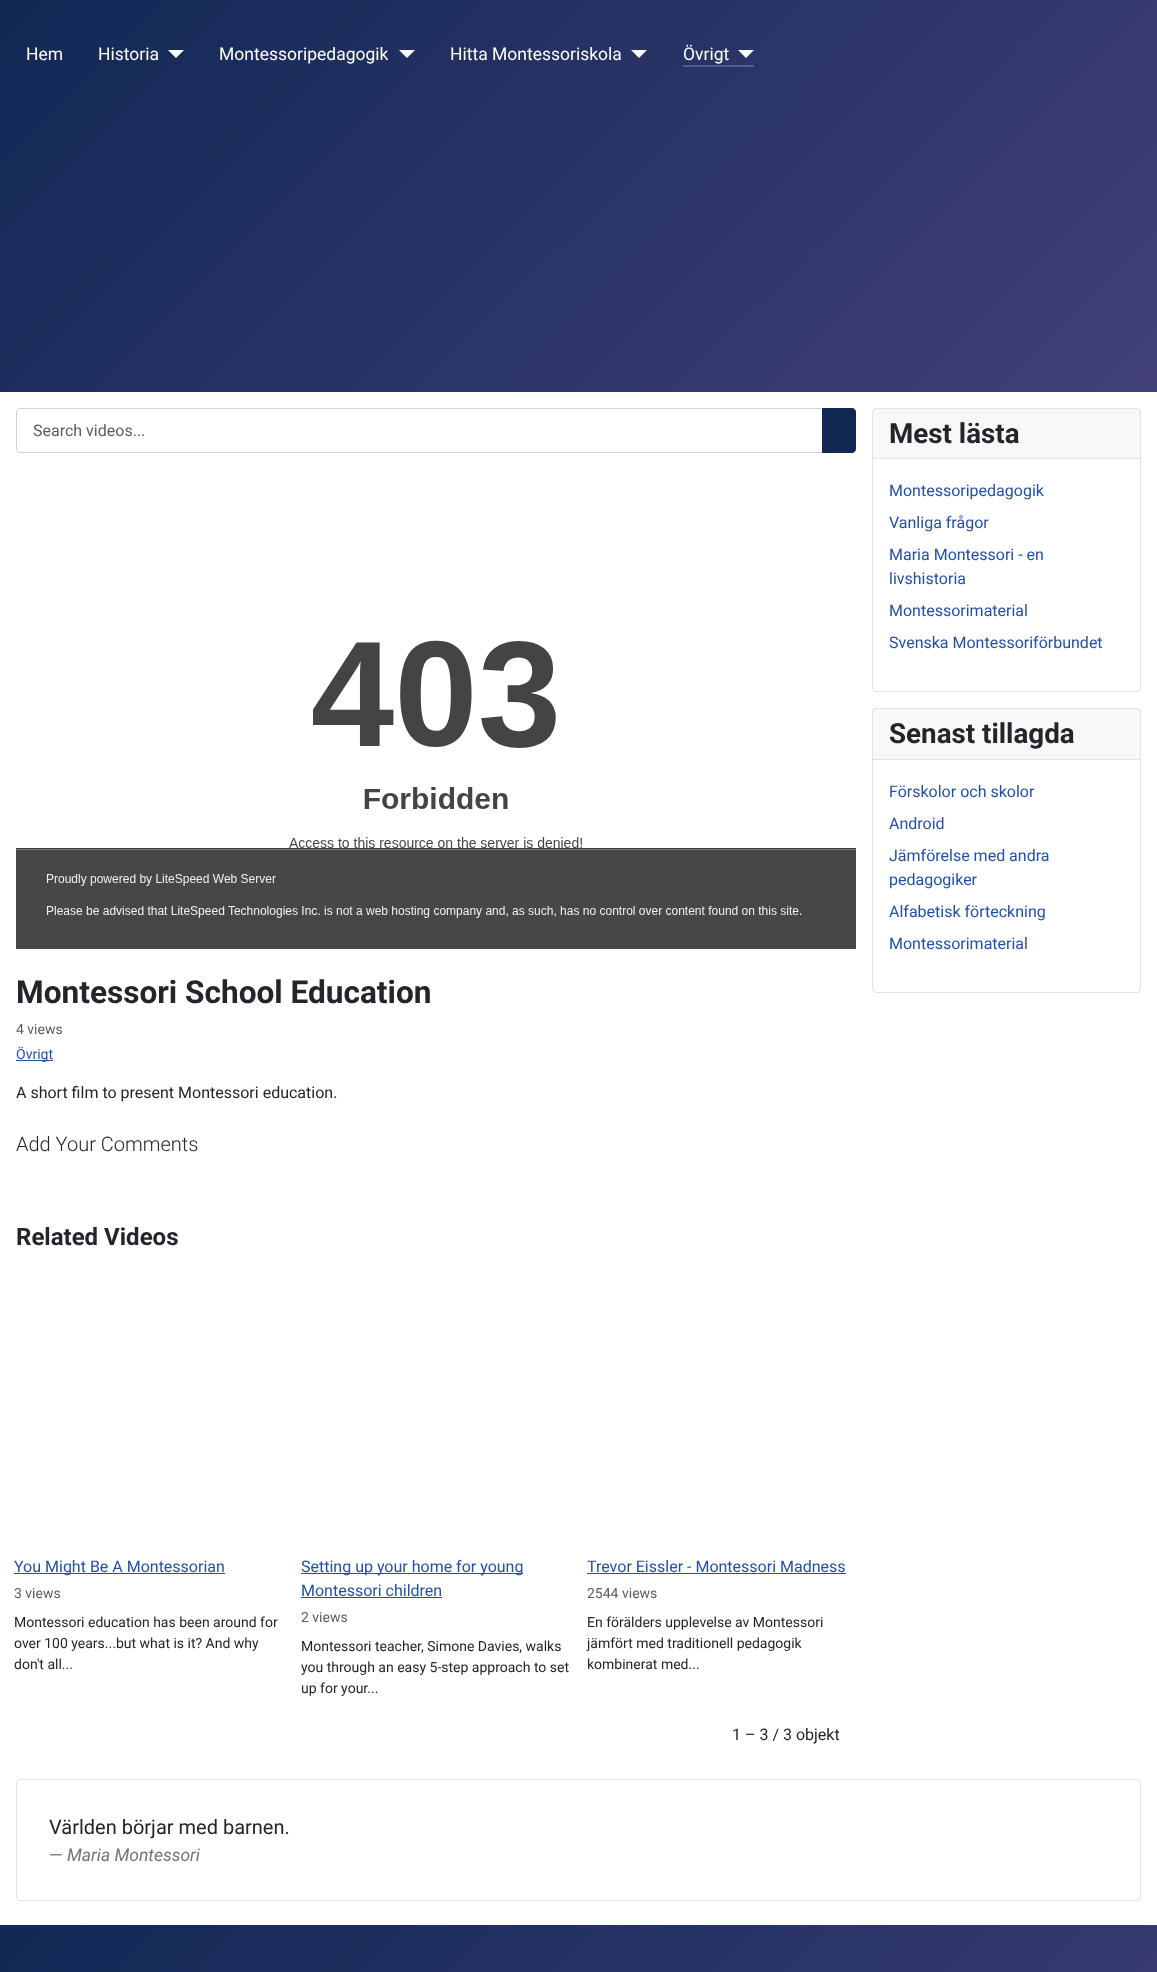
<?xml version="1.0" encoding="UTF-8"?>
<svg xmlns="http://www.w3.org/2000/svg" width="1157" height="1972">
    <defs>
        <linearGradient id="g1" gradientUnits="userSpaceOnUse" x1="191" y1="-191" x2="966" y2="583"><stop offset="0" stop-color="#112855"/><stop offset="1" stop-color="#424077"/></linearGradient>
        <linearGradient id="g2" gradientUnits="userSpaceOnUse" x1="182" y1="1743" x2="975" y2="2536"><stop offset="0" stop-color="#112855"/><stop offset="1" stop-color="#424077"/></linearGradient>
    </defs>
    <rect width="100%" height="100%" fill="#FFFFFF"/>
    <rect x="0" y="0" width="1157" height="392" fill="url(#g1)"/>
    <text x="26" y="60" font-family="Roboto" font-size="17.5" fill="#FFFFFF">Hem</text>
    <text x="98" y="60" font-family="Roboto" font-size="17.5" fill="#FFFFFF">Historia</text>
    <path d="M 168 50 H 184 L 176 58 Z" fill="#FFFFFF"/>
    <text x="219" y="60" font-family="Roboto" font-size="17.5" fill="#FFFFFF">Montessoripedagogik</text>
    <path d="M 399 50 H 415 L 407 58 Z" fill="#FFFFFF"/>
    <text x="450" y="60" font-family="Roboto" font-size="17.5" fill="#FFFFFF">Hitta Montessoriskola</text>
    <path d="M 631 50 H 647 L 639 58 Z" fill="#FFFFFF"/>
    <text x="683" y="60" font-family="Roboto" font-size="17.5" fill="#FFFFFF">Övrigt</text>
    <path d="M 738 50 H 754 L 746 58 Z" fill="#FFFFFF"/>
    <rect x="683" y="65" width="71" height="2" fill="#545D85"/>
    <path d="M 20 408.5 H 822.5 V 452.5 H 20 C 18 452.5 16.5 451 16.5 449 V 412 C 16.5 410 18 408.5 20 408.5 Z" fill="none" stroke="#CED4DA"/>
    <text x="33" y="436" font-family="Roboto" font-size="16" fill="#595C5F">Search videos...</text>
    <path d="M 822.5 408.5 H 852 C 854 408.5 855.5 410 855.5 412 V 449 C 855.5 451 854 452.5 852 452.5 H 822.5 Z" fill="#112855" stroke="#112855"/>
    <image x="16" y="640" width="840" height="309" href="img_01.png"/>
    <text x="16" y="1003" font-family="Roboto" font-size="31.6" font-weight="700" fill="#22262A">Montessori School Education</text>
    <text x="16" y="1034" font-family="Roboto" font-size="14" fill="#595C5F">4 views</text>
    <rect x="16" y="1060" width="37" height="1" fill="#224FAA"/>
    <text x="16" y="1059" font-family="Roboto" font-size="14" fill="#224FAA">Övrigt</text>
    <text x="16" y="1098" font-family="Roboto" font-size="16" fill="#22262A">A short film to present Montessori education.</text>
    <text x="16" y="1151" font-family="Roboto" font-size="20" font-weight="300" fill="#22262A">Add Your Comments</text>
    <text x="16" y="1245" font-family="Roboto" font-size="24" font-weight="700" fill="#22262A">Related Videos</text>
    <rect x="14" y="1573" width="211" height="1" fill="#224FAA"/>
    <text x="14" y="1572" font-family="Roboto" font-size="16" fill="#224FAA">You Might Be A Montessorian</text>
    <text x="14" y="1598" font-family="Roboto" font-size="14" fill="#595C5F">3 views</text>
    <text font-family="Roboto" font-size="14" fill="#22262A">
        <tspan x="14" y="1627">Montessori education has been around for</tspan>
        <tspan x="14" y="1648">over 100 years...but what is it? And why</tspan>
        <tspan x="14" y="1669">don't all...</tspan>
    </text>
    <rect x="301" y="1573" width="222" height="1" fill="#224FAA"/>
    <text font-family="Roboto" font-size="16" fill="#224FAA">
        <tspan x="301" y="1572">Setting up your home for young</tspan>
        <tspan x="301" y="1596">Montessori children</tspan>
    </text>
    <rect x="301" y="1597" width="141" height="1" fill="#224FAA"/>
    <text x="301" y="1622" font-family="Roboto" font-size="14" fill="#595C5F">2 views</text>
    <text font-family="Roboto" font-size="14" fill="#22262A">
        <tspan x="301" y="1651">Montessori teacher, Simone Davies, walks</tspan>
        <tspan x="301" y="1672">you through an easy 5-step approach to set</tspan>
        <tspan x="301" y="1693">up for your...</tspan>
    </text>
    <text x="587" y="1572" font-family="Roboto" font-size="16" fill="#224FAA">Trevor Eissler - Montessori Madness</text>
    <rect x="587" y="1573" width="259" height="1" fill="#224FAA"/>
    <text x="587" y="1598" font-family="Roboto" font-size="14" fill="#595C5F">2544 views</text>
    <text font-family="Roboto" font-size="14" fill="#22262A">
        <tspan x="587" y="1627">En förälders upplevelse av Montessori</tspan>
        <tspan x="587" y="1648">jämfört med traditionell pedagogik</tspan>
        <tspan x="587" y="1669">kombinerat med...</tspan>
    </text>
    <text x="732" y="1740" font-family="Roboto" font-size="16" fill="#22262A">1 – 3 / 3 objekt</text>
    <rect x="872.5" y="408.5" width="268" height="283" rx="3.5" fill="none" stroke="#DFE3E7"/>
    <rect x="873" y="409" width="267" height="49" fill="#22262A" fill-opacity="0.03"/>
    <rect x="873" y="458" width="267" height="1" fill="#DFE3E7"/>
    <text x="889" y="443" font-family="Roboto" font-size="27.75" font-weight="700" fill="#22262A">Mest lästa</text>
    <text x="889" y="496" font-family="Roboto" font-size="16" fill="#224FAA">Montessoripedagogik</text>
    <text x="889" y="528" font-family="Roboto" font-size="16" fill="#224FAA">Vanliga frågor</text>
    <text font-family="Roboto" font-size="16" fill="#224FAA">
        <tspan x="889" y="560">Maria Montessori - en</tspan>
        <tspan x="889" y="584">livshistoria</tspan>
    </text>
    <text x="889" y="616" font-family="Roboto" font-size="16" fill="#224FAA">Montessorimaterial</text>
    <text x="889" y="648" font-family="Roboto" font-size="16" fill="#224FAA">Svenska Montessoriförbundet</text>
    <rect x="872.5" y="708.5" width="268" height="284" rx="3.5" fill="none" stroke="#DFE3E7"/>
    <rect x="873" y="709" width="267" height="50" fill="#22262A" fill-opacity="0.03"/>
    <rect x="873" y="759" width="267" height="1" fill="#DFE3E7"/>
    <text x="889" y="743" font-family="Roboto" font-size="27.75" font-weight="700" fill="#22262A">Senast tillagda</text>
    <text x="889" y="797" font-family="Roboto" font-size="16" fill="#224FAA">Förskolor och skolor</text>
    <text x="889" y="829" font-family="Roboto" font-size="16" fill="#224FAA">Android</text>
    <text font-family="Roboto" font-size="16" fill="#224FAA">
        <tspan x="889" y="861">Jämförelse med andra</tspan>
        <tspan x="889" y="885">pedagogiker</tspan>
    </text>
    <text x="889" y="917" font-family="Roboto" font-size="16" fill="#224FAA">Alfabetisk förteckning</text>
    <text x="889" y="949" font-family="Roboto" font-size="16" fill="#224FAA">Montessorimaterial</text>
    <rect x="16.5" y="1779.5" width="1124" height="121" rx="3.5" fill="none" stroke="#DFE3E7"/>
    <text x="49" y="1834" font-family="Roboto" font-size="20" fill="#22262A">Världen börjar med barnen.</text>
    <text x="49" y="1861" font-family="Roboto" font-size="17.5" fill="#6D757E">—</text>
    <text x="67" y="1861" font-family="Roboto" font-size="17.5" font-style="italic" fill="#6D757E">Maria Montessori</text>
    <rect x="0" y="1925" width="1157" height="47" fill="url(#g2)"/>
</svg>
